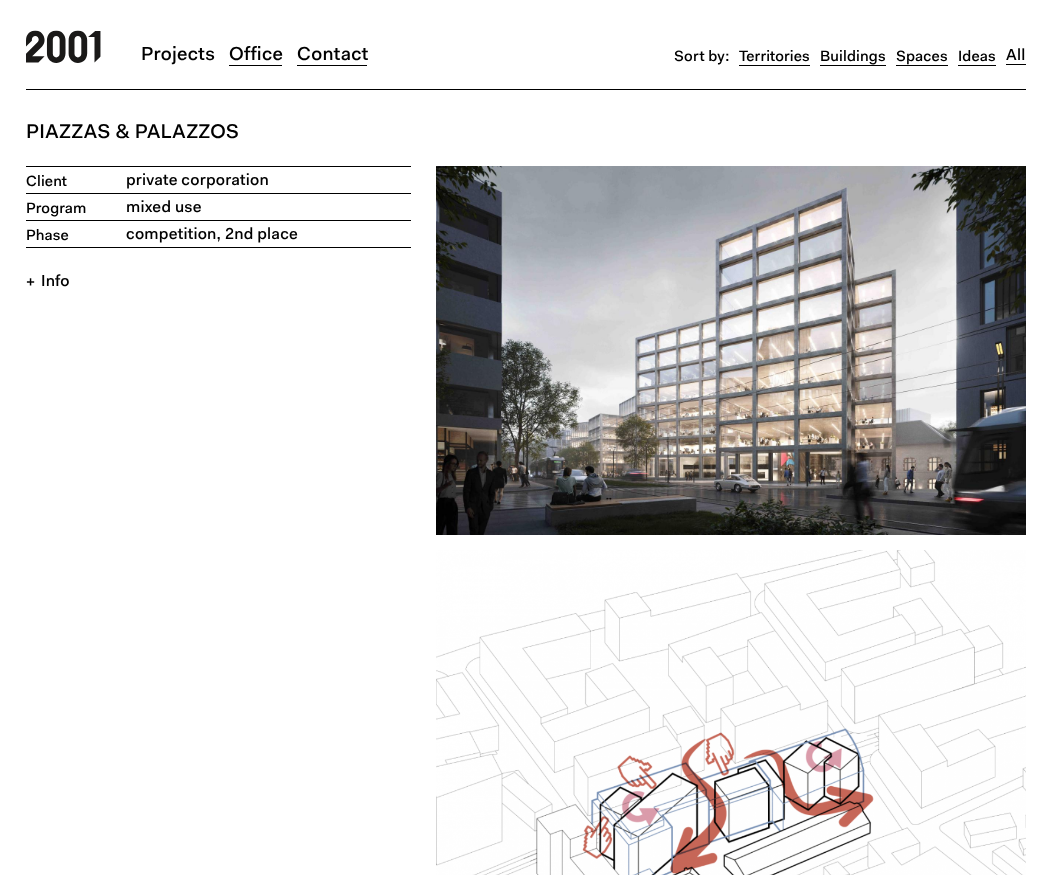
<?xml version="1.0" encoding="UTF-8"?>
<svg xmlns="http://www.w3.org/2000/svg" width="1052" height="875">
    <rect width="100%" height="100%" fill="#FFFFFF"/>
    <rect x="26" y="89" width="1000" height="1" fill="#000000"/>
    <image x="26" y="30" width="75" height="33" href="img_01.png"/>
    <text x="141" y="60" font-family="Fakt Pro" font-size="19" font-weight="500" letter-spacing="0.25" fill="#000000">Projects</text>
    <text x="229" y="60" font-family="Fakt Pro" font-size="19" font-weight="500" letter-spacing="0.25" fill="#000000">Office</text>
    <rect x="229" y="65" width="53" height="1" fill="#000000"/>
    <text x="297" y="60" font-family="Fakt Pro" font-size="19" font-weight="500" letter-spacing="0.25" fill="#000000">Contact</text>
    <rect x="297" y="65" width="70" height="1" fill="#000000"/>
    <text x="674" y="61" font-family="Fakt Pro" font-size="15" font-weight="500" letter-spacing="0.2" fill="#000000">Sort by:</text>
    <text x="739" y="61" font-family="Fakt Pro" font-size="15" font-weight="500" letter-spacing="0.1" fill="#000000">Territories</text>
    <rect x="739" y="65" width="71" height="1" fill="#000000"/>
    <text x="820" y="61" font-family="Fakt Pro" font-size="15" font-weight="500" letter-spacing="0.1" fill="#000000">Buildings</text>
    <rect x="820" y="65" width="66" height="1" fill="#000000"/>
    <text x="896" y="61" font-family="Fakt Pro" font-size="15" font-weight="500" letter-spacing="0.1" fill="#000000">Spaces</text>
    <rect x="896" y="65" width="52" height="1" fill="#000000"/>
    <text x="958" y="61" font-family="Fakt Pro" font-size="15" font-weight="500" letter-spacing="0.1" fill="#000000">Ideas</text>
    <rect x="958" y="65" width="38" height="1" fill="#000000"/>
    <text x="1006" y="60" font-family="Fakt Pro" font-size="16" font-weight="500" letter-spacing="0.2" fill="#000000">All</text>
    <rect x="1006" y="64" width="20" height="1" fill="#000000"/>
    <text x="26" y="138" font-family="Fakt Pro" font-size="20" font-weight="500" letter-spacing="0.25" fill="#000000">PIAZZAS &amp; PALAZZOS</text>
    <rect x="26" y="166" width="385" height="1" fill="#000000"/>
    <text x="26" y="186" font-family="Fakt Pro" font-size="15" font-weight="500" letter-spacing="0.1" fill="#000000">Client</text>
    <text x="126" y="185" font-family="Fakt Pro" font-size="16" font-weight="500" letter-spacing="0.2" fill="#000000">private corporation</text>
    <rect x="26" y="193" width="385" height="1" fill="#000000"/>
    <text x="26" y="213" font-family="Fakt Pro" font-size="15" font-weight="500" letter-spacing="0.1" fill="#000000">Program</text>
    <text x="126" y="212" font-family="Fakt Pro" font-size="16" font-weight="500" letter-spacing="0.2" fill="#000000">mixed use</text>
    <rect x="26" y="220" width="385" height="1" fill="#000000"/>
    <text x="26" y="240" font-family="Fakt Pro" font-size="15" font-weight="500" letter-spacing="0.1" fill="#000000">Phase</text>
    <text x="126" y="239" font-family="Fakt Pro" font-size="16" font-weight="500" letter-spacing="0.2" fill="#000000">competition, 2nd place</text>
    <rect x="26" y="247" width="385" height="1" fill="#000000"/>
    <text x="26" y="286" font-family="Fakt Pro" font-size="16" font-weight="500" letter-spacing="0.2" fill="#000000">+</text>
    <text x="41" y="286" font-family="Fakt Pro" font-size="16" font-weight="500" letter-spacing="0.2" fill="#000000">Info</text>
    <image x="436" y="166" width="590" height="369" href="img_02.png"/>
    <image x="436" y="550" width="590" height="325" href="img_03.png"/>
</svg>
